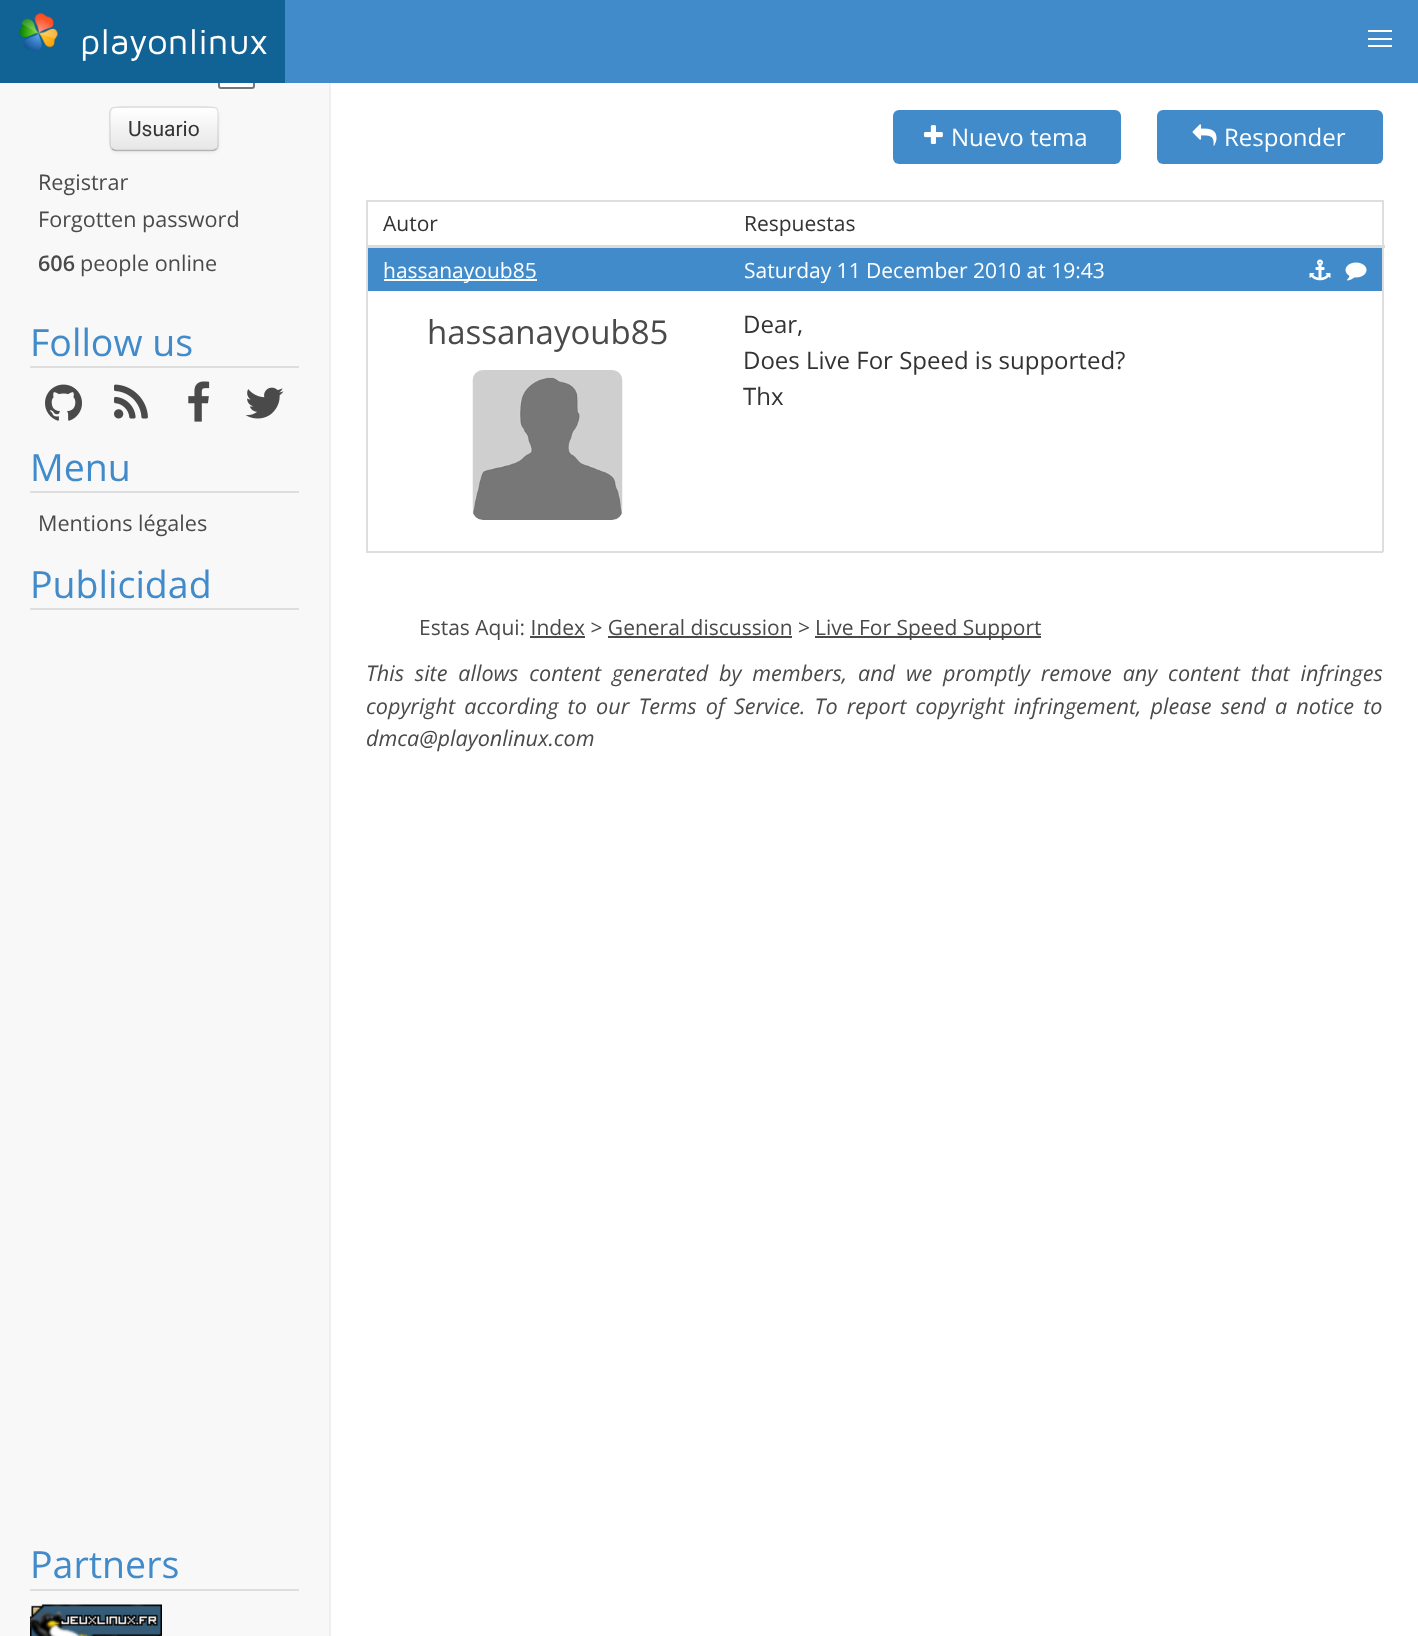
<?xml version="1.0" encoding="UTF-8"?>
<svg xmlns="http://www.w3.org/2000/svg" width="1418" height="1636">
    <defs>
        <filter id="blur1" x="-50%" y="-200%" width="200%" height="500%"><feGaussianBlur stdDeviation="1.5"/></filter>
        <clipPath id="clip1"><rect x="110" y="107" width="109" height="45" rx="6"/></clipPath>
        <linearGradient id="g1" gradientUnits="userSpaceOnUse" x1="164" y1="108" x2="164" y2="150"><stop offset="0" stop-color="#FFFFFF"/><stop offset="1" stop-color="#E6E6E6"/></linearGradient>
    </defs>
    <rect width="100%" height="100%" fill="#FFFFFF"/>
    <rect x="285" y="0" width="1133" height="83" fill="#428BCA"/>
    <rect x="0" y="83" width="329" height="1553" fill="#F8F8F8"/>
    <rect x="219" y="52" width="35" height="36" rx="2" fill="#FFFFFF" stroke="#767676" stroke-width="2"/>
    <rect x="0" y="0" width="285" height="83" fill="#116395"/>
    <image x="19" y="13" width="39" height="39" href="img_01.png"/>
    <text x="80" y="54" font-family="Maven Pro" font-size="36" fill="#FFFFFF">playonlinux</text>
    <rect x="1368" y="30" width="24" height="2" fill="#FFFFFF"/>
    <rect x="1368" y="38" width="24" height="2" fill="#FFFFFF"/>
    <rect x="1368" y="45" width="24" height="2" fill="#FFFFFF"/>
    <rect x="329" y="83" width="2" height="1553" fill="#EFEFEF"/>
    <rect x="110" y="108" width="109" height="45" rx="6" fill="#000000" fill-opacity="0.05" filter="url(#blur1)"/>
    <rect x="110" y="107" width="109" height="45" rx="6" fill="#F5F5F5"/>
    <g clip-path="url(#clip1)">
        <rect x="110" y="108" width="109" height="42" fill="url(#g1)"/>
    </g>
    <path d="M 216.5 149 L 213.5 150.5 H 115 L 112 149" fill="none" stroke="#B3B3B3" stroke-width="1.5"/>
    <path d="M 112 149 C 109.5 147 110 143 110 140 V 129 C 110 104.5 106.5 107 132 107 H 197 C 222 107 218 104.5 218 129 V 140 C 218 143 219 147 216.5 149" fill="none" stroke="#000000" stroke-opacity="0.1" stroke-width="1.5"/>
    <text x="128" y="136" font-family="Roboto" font-size="21" fill="#333333">Usuario</text>
    <text font-family="Open Sans" font-size="21.6" fill="#4A4A4A">
        <tspan x="38" y="190">Registrar</tspan>
        <tspan x="38" y="227">Forgotten password</tspan>
    </text>
    <text x="38" y="271" font-family="Open Sans" font-size="21.6" font-weight="600" fill="#4A4A4A">606</text>
    <text x="80" y="271" font-family="Open Sans" font-size="21.6" fill="#4A4A4A">people online</text>
    <rect x="30" y="366" width="269" height="2" fill="#DEDEDE"/>
    <text x="30" y="356" font-family="Open Sans" font-size="37.5" fill="#428BCA">Follow us</text>
    <image x="45" y="384" width="37" height="37" href="img_02.png"/>
    <image x="114" y="384" width="34" height="35" href="img_03.png"/>
    <image x="188" y="381" width="22" height="41" href="img_04.png"/>
    <image x="245" y="387" width="39" height="32" href="img_05.png"/>
    <rect x="30" y="491" width="269" height="2" fill="#DEDEDE"/>
    <text x="30" y="481" font-family="Open Sans" font-size="37.5" fill="#428BCA">Menu</text>
    <text x="38" y="531" font-family="Open Sans" font-size="21.6" fill="#4A4A4A">Mentions légales</text>
    <rect x="30" y="608" width="269" height="2" fill="#DEDEDE"/>
    <text x="30" y="598" font-family="Open Sans" font-size="37.5" fill="#428BCA">Publicidad</text>
    <rect x="30" y="1589" width="269" height="2" fill="#DEDEDE"/>
    <text x="30" y="1578" font-family="Open Sans" font-size="37.5" fill="#428BCA">Partners</text>
    <image x="30" y="1604" width="132" height="32" href="img_06.png"/>
    <rect x="893" y="110" width="228" height="54" rx="6" fill="#428BCA"/>
    <image x="924" y="125" width="19" height="19" href="img_07.png"/>
    <text x="951" y="146" font-family="Open Sans" font-size="24" fill="#FFFFFF">Nuevo tema</text>
    <rect x="1157" y="110" width="226" height="54" rx="6" fill="#428BCA"/>
    <image x="1192" y="124" width="25" height="22" href="img_08.png"/>
    <text x="1224" y="146" font-family="Open Sans" font-size="24" fill="#FFFFFF">Responder</text>
    <rect x="366" y="200" width="1017" height="2" fill="#DEDEDE"/>
    <rect x="1382" y="200" width="2" height="352" fill="#DEDEDE"/>
    <rect x="366" y="551" width="1017" height="2" fill="#DEDEDE"/>
    <rect x="366" y="200" width="2" height="352" fill="#DEDEDE"/>
    <text x="383" y="231" font-family="Open Sans" font-size="21" fill="#333333">Autor</text>
    <rect x="366" y="245" width="1019" height="3" fill="#DBDBDB"/>
    <text x="744" y="231" font-family="Open Sans" font-size="21" fill="#333333">Respuestas</text>
    <rect x="368" y="248" width="1014" height="43" fill="#428BCA"/>
    <rect x="384" y="279" width="153" height="2" fill="#FFFFFF"/>
    <text x="383" y="278" font-family="Open Sans" font-size="21" fill="#FFFFFF">hassanayoub85</text>
    <text x="744" y="278" font-family="Open Sans" font-size="21" fill="#FFFFFF">Saturday 11 December 2010 at 19:43</text>
    <image x="1309" y="259" width="22" height="22" href="img_09.png"/>
    <image x="1345" y="262" width="22" height="19" href="img_10.png"/>
    <text x="427" y="344" font-family="Open Sans" font-size="33" fill="#4A4A4A">hassanayoub85</text>
    <image x="472" y="370" width="151" height="150" href="img_11.png"/>
    <text font-family="Open Sans" font-size="24" fill="#333333">
        <tspan x="743" y="333">Dear,</tspan>
        <tspan x="743" y="369">Does Live For Speed is supported?</tspan>
        <tspan x="743" y="405">Thx</tspan>
    </text>
    <text x="419" y="635" font-family="Open Sans" font-size="21" fill="#4A4A4A">Estas Aqui: Index &gt; General discussion &gt;</text>
    <rect x="815" y="636" width="226" height="2" fill="#4A4A4A"/>
    <text x="815" y="635" font-family="Open Sans" font-size="21" fill="#4A4A4A">Live For Speed Support</text>
    <rect x="530" y="636" width="55" height="2" fill="#4A4A4A"/>
    <rect x="608" y="636" width="184" height="2" fill="#4A4A4A"/>
    <text font-family="Open Sans" font-size="21.6" font-style="italic" fill="#4A4A4A">
        <tspan x="366" y="681" word-spacing="5.25">This site allows content generated by members, and we promptly remove any content that infringes</tspan>
        <tspan x="366" y="714" word-spacing="3.6">copyright according to our Terms of Service. To report copyright infringement, please send a notice to</tspan>
        <tspan x="366" y="746">dmca@playonlinux.com</tspan>
    </text>
</svg>
